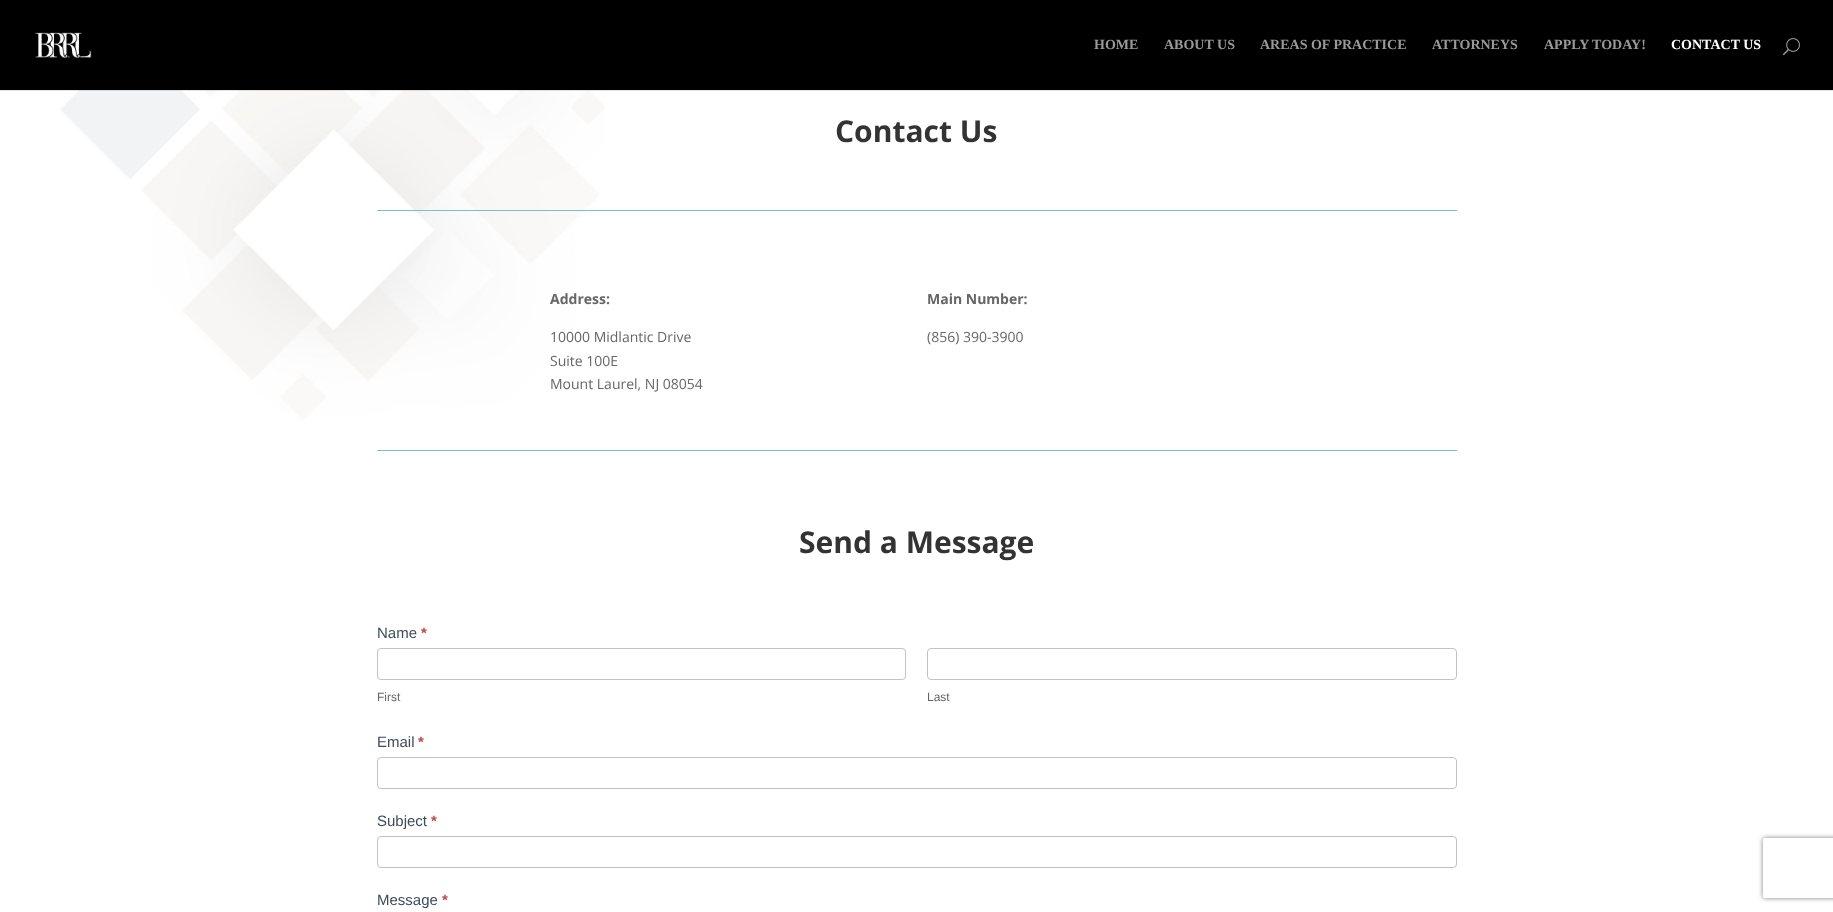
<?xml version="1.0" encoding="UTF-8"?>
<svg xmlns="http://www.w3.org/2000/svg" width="1833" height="912">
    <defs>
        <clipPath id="clip1"><path d="M 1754 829 H 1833 V 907 H 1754 Z M 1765 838 H 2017 C 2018 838 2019 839 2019 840 V 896 C 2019 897 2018 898 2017 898 H 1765 C 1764 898 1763 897 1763 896 V 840 C 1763 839 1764 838 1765 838 Z" clip-rule="evenodd"/></clipPath>
        <filter id="blur1" x="-50%" y="-200%" width="200%" height="500%"><feGaussianBlur stdDeviation="2.5"/></filter>
    </defs>
    <rect width="100%" height="100%" fill="#FFFFFF"/>
    <image x="60" y="90" width="545" height="330" href="img_03.png"/>
    <rect x="0" y="90" width="1833" height="1" fill="#000000" fill-opacity="0.1"/>
    <rect x="0" y="0" width="1833" height="90" fill="#000000"/>
    <image x="35" y="32" width="57" height="26" href="img_01.png"/>
    <text x="1094" y="49" font-family="Liberation Serif" font-size="14" font-weight="700" fill="#999999">HOME</text>
    <text x="1164" y="49" font-family="Liberation Serif" font-size="14" font-weight="700" fill="#999999">ABOUT US</text>
    <text x="1260" y="49" font-family="Liberation Serif" font-size="14" font-weight="700" fill="#999999">AREAS OF PRACTICE</text>
    <text x="1432" y="49" font-family="Liberation Serif" font-size="14" font-weight="700" fill="#999999">ATTORNEYS</text>
    <text x="1544" y="49" font-family="Liberation Serif" font-size="14" font-weight="700" fill="#999999">APPLY TODAY!</text>
    <text x="1671" y="49" font-family="Liberation Serif" font-size="14" font-weight="700" fill="#FFFFFF">CONTACT US</text>
    <image x="1783" y="38" width="17" height="18" href="img_02.png"/>
    <text x="835" y="142" font-family="Open Sans" font-size="30" font-weight="700" fill="#333333">Contact Us</text>
    <rect x="377" y="210" width="1080" height="1" fill="#7EBEC5"/>
    <text x="550" y="304" font-family="Open Sans" font-size="14" font-weight="700" fill="#666666">Address:</text>
    <text font-family="Open Sans" font-size="14" fill="#666666">
        <tspan x="550" y="342">10000 Midlantic Drive</tspan>
        <tspan x="550" y="366">Suite 100E</tspan>
        <tspan x="550" y="389">Mount Laurel, NJ 08054</tspan>
    </text>
    <text x="927" y="304" font-family="Open Sans" font-size="14" font-weight="700" fill="#666666">Main Number:</text>
    <text x="927" y="342" font-family="Open Sans" font-size="14" fill="#666666">(856) 390-3900</text>
    <rect x="377" y="450" width="1080" height="1" fill="#7EBEC5"/>
    <text x="799" y="553" font-family="Open Sans" font-size="30" font-weight="700" fill="#333333">Send a Message</text>
    <text x="377" y="638" font-family="Liberation Sans" font-size="15" fill="#3F4B5B">Name</text>
    <text x="421" y="638" font-family="Liberation Sans" font-size="15" font-weight="700" fill="#B94A48">*</text>
    <rect x="377.5" y="648.5" width="528" height="31" rx="3.5" fill="none" stroke="#BFC3C8"/>
    <text x="377" y="701" font-family="Liberation Sans" font-size="12" fill="#666666">First</text>
    <rect x="927.5" y="648.5" width="529" height="31" rx="3.5" fill="none" stroke="#BFC3C8"/>
    <text x="927" y="701" font-family="Liberation Sans" font-size="12" fill="#666666">Last</text>
    <text x="377" y="747" font-family="Liberation Sans" font-size="15" fill="#3F4B5B">Email</text>
    <text x="418" y="747" font-family="Liberation Sans" font-size="15" font-weight="700" fill="#B94A48">*</text>
    <rect x="377.5" y="757.5" width="1079" height="31" rx="3.5" fill="none" stroke="#BFC3C8"/>
    <text x="377" y="826" font-family="Liberation Sans" font-size="15" fill="#3F4B5B">Subject</text>
    <text x="431" y="826" font-family="Liberation Sans" font-size="15" font-weight="700" fill="#B94A48">*</text>
    <rect x="377.5" y="836.5" width="1079" height="31" rx="3.5" fill="none" stroke="#BFC3C8"/>
    <text x="377" y="905" font-family="Liberation Sans" font-size="15" fill="#3F4B5B">Message</text>
    <text x="442" y="905" font-family="Liberation Sans" font-size="15" font-weight="700" fill="#B94A48">*</text>
    <g clip-path="url(#clip1)">
        <rect x="1763" y="838" width="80" height="60" rx="2" fill="#808080" filter="url(#blur1)"/>
    </g>
</svg>
